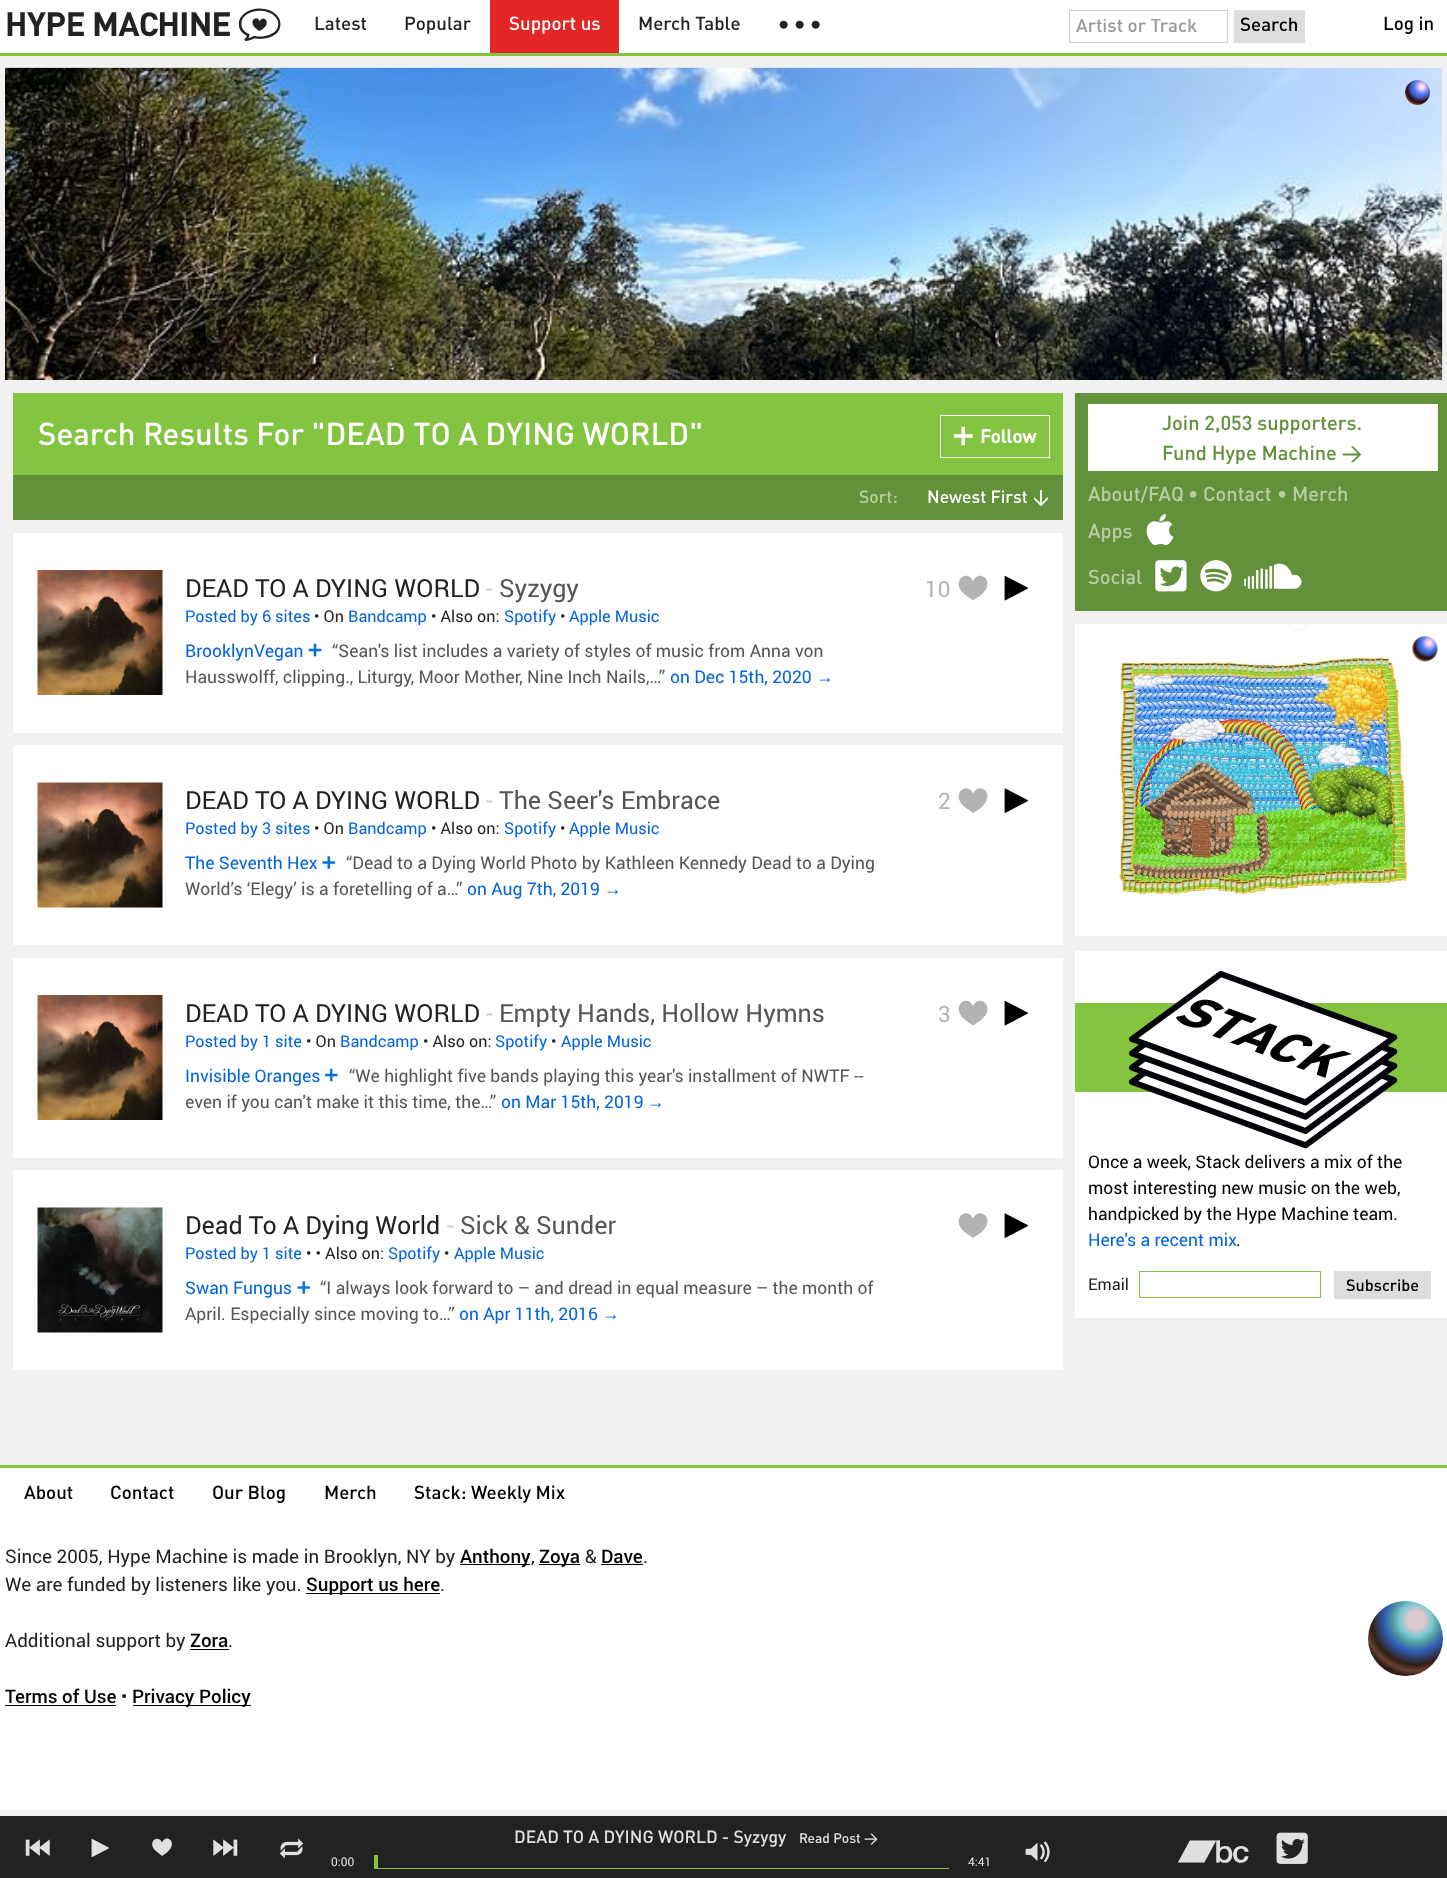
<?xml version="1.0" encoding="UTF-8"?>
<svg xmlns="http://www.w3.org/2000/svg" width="1447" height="1878">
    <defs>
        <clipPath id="clip1"><rect x="1076" y="19" width="150" height="19"/></clipPath>
        <clipPath id="clip2"><rect x="1088" y="486" width="350" height="20"/></clipPath>
        <radialGradient id="g1" gradientUnits="userSpaceOnUse" cx="1416" cy="1620" r="56"><stop offset="0.16" stop-color="#DCC8D0"/><stop offset="0.3" stop-color="#78C8CF"/><stop offset="0.43" stop-color="#4D959E"/><stop offset="0.56" stop-color="#305EB9"/><stop offset="0.8" stop-color="#311F12"/><stop offset="0.91" stop-color="#684232"/><stop offset="1" stop-color="#2D1C13"/></radialGradient>
    </defs>
    <rect width="100%" height="100%" fill="#F1F1F1"/>
    <rect x="0" y="0" width="1447" height="53" fill="#FFFFFF"/>
    <rect x="0" y="53" width="1447" height="3" fill="#83C441"/>
    <text x="5" y="35" font-family="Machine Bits" font-size="47.5" fill="#222222">1</text>
    <text x="314" y="30" font-family="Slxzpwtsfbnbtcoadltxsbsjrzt" font-size="18.75" font-weight="500" fill="#222222">Latest</text>
    <text x="404" y="30" font-family="Slxzpwtsfbnbtcoadltxsbsjrzt" font-size="18.75" font-weight="500" fill="#222222">Popular</text>
    <rect x="490" y="0" width="129" height="53" fill="#E42626"/>
    <text x="509" y="30" font-family="Slxzpwtsfbnbtcoadltxsbsjrzt" font-size="18.75" font-weight="500" fill="#FFFFFF">Support us</text>
    <text x="638" y="30" font-family="Slxzpwtsfbnbtcoadltxsbsjrzt" font-size="18.75" font-weight="500" fill="#222222">Merch Table</text>
    <text x="778" y="30" font-family="Liberation Serif" font-size="18.75" font-weight="700" fill="#222222">● ● ●</text>
    <rect x="1069.5" y="10.5" width="158" height="32" fill="none" stroke="#CCCCCC"/>
    <g clip-path="url(#clip1)">
        <text x="1076" y="32" font-family="Slxzpwtsfbnbtcoadltxsbsjrzt" font-size="18.75" font-weight="500" fill="#999999">Artist or Track</text>
    </g>
    <rect x="1234" y="10" width="71" height="33" fill="#DDDDDD"/>
    <text x="1240" y="31" font-family="Slxzpwtsfbnbtcoadltxsbsjrzt" font-size="18.75" font-weight="500" fill="#000000">Search</text>
    <text x="1383" y="30" font-family="Slxzpwtsfbnbtcoadltxsbsjrzt" font-size="18.75" font-weight="500" fill="#000000">Log in</text>
    <image x="5" y="67" width="1438" height="313" href="img_01.png"/>
    <rect x="13" y="393" width="1050" height="82" fill="#83C441"/>
    <text x="38" y="445" font-family="Slxzpwtsfbnbtcoadltxsbsjrzt" font-size="31.25" font-weight="500" fill="#FFFFFF">Search Results For "DEAD TO A DYING WORLD"</text>
    <rect x="940.5" y="415.5" width="109" height="42" fill="none" stroke="#FFFFFF"/>
    <text x="953" y="443" font-family="Machine Bits" font-size="18.75" fill="#FFFFFF">+</text>
    <text x="980" y="443" font-family="Slxzpwtsfbnbtcoadltxsbsjrzt" font-size="18.75" font-weight="700" fill="#FFFFFF">Follow</text>
    <rect x="1075" y="393" width="372" height="218" fill="#63903A"/>
    <rect x="1088" y="404" width="350" height="67" fill="#FFFFFF"/>
    <text font-family="Slxzpwtsfbnbtcoadltxsbsjrzt" font-size="20" font-weight="500" fill="#63903A">
        <tspan x="1162" y="430">Join 2,053 supporters.</tspan>
        <tspan x="1162" y="460">Fund Hype Machine →</tspan>
    </text>
    <g clip-path="url(#clip2)">
        <text x="1088" y="501" font-family="Slxzpwtsfbnbtcoadltxsbsjrzt" font-size="20" font-weight="500" fill="#B9CDA5">About/FAQ</text>
    </g>
    <text x="1188" y="501" font-family="Slxzpwtsfbnbtcoadltxsbsjrzt" font-size="20" font-weight="500" fill="#B9CDA5">•</text>
    <text x="1203" y="501" font-family="Slxzpwtsfbnbtcoadltxsbsjrzt" font-size="20" font-weight="500" fill="#B9CDA5">Contact</text>
    <text x="1277" y="501" font-family="Slxzpwtsfbnbtcoadltxsbsjrzt" font-size="20" font-weight="500" fill="#B9CDA5">•</text>
    <text x="1292" y="501" font-family="Slxzpwtsfbnbtcoadltxsbsjrzt" font-size="20" font-weight="500" fill="#B9CDA5">Merch</text>
    <text x="1088" y="538" font-family="Slxzpwtsfbnbtcoadltxsbsjrzt" font-size="20" font-weight="500" fill="#B9CDA5">Apps</text>
    <image x="1146" y="513" width="28" height="33" href="img_02.png"/>
    <text x="1088" y="584" font-family="Slxzpwtsfbnbtcoadltxsbsjrzt" font-size="20" font-weight="500" fill="#B9CDA5">Social</text>
    <image x="1155" y="560" width="32" height="32" href="img_03.png"/>
    <image x="1200" y="560" width="32" height="32" href="img_04.png"/>
    <text x="1243" y="586" font-family="Machine Bits" font-size="25" fill="#FFFFFF">9</text>
    <image x="1075" y="624" width="372" height="312" href="img_05.png"/>
    <rect x="1075" y="951" width="372" height="367" fill="#FFFFFF"/>
    <image x="1075" y="970" width="372" height="179" href="img_06.png"/>
    <text font-family="Roboto" font-size="17.5" fill="#000000">
        <tspan x="1088" y="1168">Once a week, Stack delivers a mix of the</tspan>
        <tspan x="1088" y="1194">most interesting new music on the web,</tspan>
        <tspan x="1088" y="1220">handpicked by the Hype Machine team.</tspan>
    </text>
    <text x="1088" y="1246" font-family="Roboto" font-size="17.5" fill="#0063DC">Here's a recent mix</text>
    <text x="1236" y="1246" font-family="Roboto" font-size="17.5" fill="#000000">.</text>
    <text x="1088" y="1290" font-family="Roboto" font-size="16.25" fill="#222222">Email</text>
    <rect x="1139.5" y="1271.5" width="181" height="26" fill="none" stroke="#83C441"/>
    <rect x="1334" y="1271" width="97" height="28" fill="#DDDDDD"/>
    <text x="1346" y="1291" font-family="Slxzpwtsfbnbtcoadltxsbsjrzt" font-size="16.25" font-weight="500" fill="#000000">Subscribe</text>
    <rect x="13" y="475" width="1050" height="45" fill="#63903A"/>
    <text x="859" y="503" font-family="Slxzpwtsfbnbtcoadltxsbsjrzt" font-size="17.5" font-weight="500" fill="#B9CDA5">Sort:</text>
    <text x="927" y="503" font-family="Slxzpwtsfbnbtcoadltxsbsjrzt" font-size="17.5" font-weight="500" fill="#FFFFFF">Newest First ↓</text>
    <rect x="13" y="533" width="1050" height="200" fill="#FFFFFF"/>
    <image x="37" y="570" width="126" height="125" href="img_07.png"/>
    <text x="185" y="597" font-family="Roboto" font-size="25" fill="#222222">DEAD TO A DYING WORLD</text>
    <text x="486" y="597" font-family="Roboto" font-size="25" fill="#CCCCCC">-</text>
    <text x="499" y="597" font-family="Roboto" font-size="25" fill="#555555">Syzygy</text>
    <text x="925" y="597" font-family="Roboto" font-size="22.5" fill="#B3B3B3">10</text>
    <path d="M 973 581 C 979 568 997.5 581.5 980.5 595.5 L 973 600.5 L 964 594 C 950 581 967.5 568.5 973 581 Z" fill="#B3B3B3"/>
    <image x="1004" y="575" width="24" height="26" href="img_08.png"/>
    <text x="185" y="622" font-family="Roboto" font-size="16.25" fill="#0063DC">Posted by 6 sites</text>
    <text x="314" y="622" font-family="Roboto" font-size="16.25" fill="#222222">• On</text>
    <text x="348" y="622" font-family="Roboto" font-size="16.25" fill="#0063DC">Bandcamp</text>
    <text x="431" y="622" font-family="Roboto" font-size="16.25" fill="#222222">• Also on:</text>
    <text x="504" y="622" font-family="Roboto" font-size="16.25" fill="#0063DC">Spotify</text>
    <text x="560" y="622" font-family="Roboto" font-size="16.25" fill="#222222">•</text>
    <text x="569" y="622" font-family="Roboto" font-size="16.25" fill="#0063DC">Apple Music</text>
    <text x="185" y="657" font-family="Roboto" font-size="17.5" fill="#0063DC">BrooklynVegan</text>
    <image x="308" y="643" width="14" height="14" href="img_09.png"/>
    <text x="332" y="657" font-family="Roboto" font-size="17.5" fill="#555555">“Sean's list includes a variety of styles of music from Anna von</text>
    <text x="185" y="683" font-family="Roboto" font-size="17.5" fill="#555555">Hausswolff, clipping., Liturgy, Moor Mother, Nine Inch Nails,…”</text>
    <text x="670" y="683" font-family="Roboto" font-size="17.5" fill="#0063DC">on Dec 15th, 2020</text>
    <text x="816" y="683" font-family="Liberation Sans" font-size="17.5" fill="#0063DC">→</text>
    <rect x="13" y="745" width="1050" height="200" fill="#FFFFFF"/>
    <image x="37" y="782" width="126" height="126" href="img_10.png"/>
    <text x="185" y="809" font-family="Roboto" font-size="25" fill="#222222">DEAD TO A DYING WORLD</text>
    <text x="486" y="809" font-family="Roboto" font-size="25" fill="#CCCCCC">-</text>
    <text x="499" y="809" font-family="Roboto" font-size="25" fill="#555555">The Seer's Embrace</text>
    <text x="938" y="809" font-family="Roboto" font-size="22.5" fill="#B3B3B3">2</text>
    <path d="M 973 793.5 C 979 780.5 997.5 794 980.5 808 L 973 813 L 964 806.5 C 950 793.5 967.5 781 973 793.5 Z" fill="#B3B3B3"/>
    <image x="1004" y="788" width="24" height="25" href="img_11.png"/>
    <text x="185" y="834" font-family="Roboto" font-size="16.25" fill="#0063DC">Posted by 3 sites</text>
    <text x="314" y="834" font-family="Roboto" font-size="16.25" fill="#222222">• On</text>
    <text x="348" y="834" font-family="Roboto" font-size="16.25" fill="#0063DC">Bandcamp</text>
    <text x="431" y="834" font-family="Roboto" font-size="16.25" fill="#222222">• Also on:</text>
    <text x="504" y="834" font-family="Roboto" font-size="16.25" fill="#0063DC">Spotify</text>
    <text x="560" y="834" font-family="Roboto" font-size="16.25" fill="#222222">•</text>
    <text x="569" y="834" font-family="Roboto" font-size="16.25" fill="#0063DC">Apple Music</text>
    <text x="185" y="869" font-family="Roboto" font-size="17.5" fill="#0063DC">The Seventh Hex</text>
    <image x="322" y="856" width="14" height="13" href="img_12.png"/>
    <text x="346" y="869" font-family="Roboto" font-size="17.5" fill="#555555">“Dead to a Dying World Photo by Kathleen Kennedy Dead to a Dying</text>
    <text x="185" y="895" font-family="Roboto" font-size="17.5" fill="#555555">World’s ‘Elegy’ is a foretelling of a…”</text>
    <text x="467" y="895" font-family="Roboto" font-size="17.5" fill="#0063DC">on Aug 7th, 2019</text>
    <text x="604" y="895" font-family="Liberation Sans" font-size="17.5" fill="#0063DC">→</text>
    <rect x="13" y="958" width="1050" height="200" fill="#FFFFFF"/>
    <image x="37" y="995" width="126" height="125" href="img_13.png"/>
    <text x="185" y="1022" font-family="Roboto" font-size="25" fill="#222222">DEAD TO A DYING WORLD</text>
    <text x="486" y="1022" font-family="Roboto" font-size="25" fill="#CCCCCC">-</text>
    <text x="499" y="1022" font-family="Roboto" font-size="25" fill="#555555">Empty Hands, Hollow Hymns</text>
    <text x="938" y="1022" font-family="Roboto" font-size="22.5" fill="#B3B3B3">3</text>
    <path d="M 973 1006 C 979 993 997.5 1006.5 980.5 1020.5 L 973 1025.5 L 964 1019 C 950 1006 967.5 993.5 973 1006 Z" fill="#B3B3B3"/>
    <image x="1004" y="1000" width="24" height="26" href="img_08.png"/>
    <text x="185" y="1047" font-family="Roboto" font-size="16.25" fill="#0063DC">Posted by 1 site</text>
    <text x="306" y="1047" font-family="Roboto" font-size="16.25" fill="#222222">• On</text>
    <text x="340" y="1047" font-family="Roboto" font-size="16.25" fill="#0063DC">Bandcamp</text>
    <text x="423" y="1047" font-family="Roboto" font-size="16.25" fill="#222222">• Also on:</text>
    <text x="495" y="1047" font-family="Roboto" font-size="16.25" fill="#0063DC">Spotify</text>
    <text x="551" y="1047" font-family="Roboto" font-size="16.25" fill="#222222">•</text>
    <text x="561" y="1047" font-family="Roboto" font-size="16.25" fill="#0063DC">Apple Music</text>
    <text x="185" y="1082" font-family="Roboto" font-size="17.5" fill="#0063DC">Invisible Oranges</text>
    <image x="324" y="1068" width="14" height="14" href="img_14.png"/>
    <text x="349" y="1082" font-family="Roboto" font-size="17.5" fill="#555555">“We highlight five bands playing this year's installment of NWTF --</text>
    <text x="185" y="1108" font-family="Roboto" font-size="17.5" fill="#555555">even if you can't make it this time, the…”</text>
    <text x="501" y="1108" font-family="Roboto" font-size="17.5" fill="#0063DC">on Mar 15th, 2019</text>
    <text x="647" y="1108" font-family="Liberation Sans" font-size="17.5" fill="#0063DC">→</text>
    <rect x="13" y="1170" width="1050" height="200" fill="#FFFFFF"/>
    <image x="37" y="1207" width="126" height="126" href="img_15.png"/>
    <text x="185" y="1234" font-family="Roboto" font-size="25" fill="#222222">Dead To A Dying World</text>
    <text x="447" y="1234" font-family="Roboto" font-size="25" fill="#CCCCCC">-</text>
    <text x="460" y="1234" font-family="Roboto" font-size="25" fill="#555555">Sick &amp; Sunder</text>
    <path d="M 973 1218.5 C 979 1205.5 997.5 1219 980.5 1233 L 973 1238 L 964 1231.5 C 950 1218.5 967.5 1206 973 1218.5 Z" fill="#B3B3B3"/>
    <image x="1004" y="1213" width="24" height="25" href="img_11.png"/>
    <text x="185" y="1259" font-family="Roboto" font-size="16.25" fill="#0063DC">Posted by 1 site</text>
    <text x="306" y="1259" font-family="Roboto" font-size="16.25" fill="#222222">• • Also on:</text>
    <text x="388" y="1259" font-family="Roboto" font-size="16.25" fill="#0063DC">Spotify</text>
    <text x="444" y="1259" font-family="Roboto" font-size="16.25" fill="#222222">•</text>
    <text x="454" y="1259" font-family="Roboto" font-size="16.25" fill="#0063DC">Apple Music</text>
    <text x="185" y="1294" font-family="Roboto" font-size="17.5" fill="#0063DC">Swan Fungus</text>
    <image x="297" y="1281" width="14" height="13" href="img_12.png"/>
    <text x="320" y="1294" font-family="Roboto" font-size="17.5" fill="#555555">“I always look forward to – and dread in equal measure – the month of</text>
    <text x="185" y="1320" font-family="Roboto" font-size="17.5" fill="#555555">April. Especially since moving to…”</text>
    <text x="459" y="1320" font-family="Roboto" font-size="17.5" fill="#0063DC">on Apr 11th, 2016</text>
    <text x="602" y="1320" font-family="Liberation Sans" font-size="17.5" fill="#0063DC">→</text>
    <rect x="0" y="1468" width="1447" height="342" fill="#FFFFFF"/>
    <rect x="0" y="1465" width="1447" height="3" fill="#83C441"/>
    <text x="24" y="1499" font-family="Slxzpwtsfbnbtcoadltxsbsjrzt" font-size="18.75" font-weight="500" fill="#000000">About</text>
    <text x="110" y="1499" font-family="Slxzpwtsfbnbtcoadltxsbsjrzt" font-size="18.75" font-weight="500" fill="#000000">Contact</text>
    <text x="212" y="1499" font-family="Slxzpwtsfbnbtcoadltxsbsjrzt" font-size="18.75" font-weight="500" fill="#000000">Our Blog</text>
    <text x="324" y="1499" font-family="Slxzpwtsfbnbtcoadltxsbsjrzt" font-size="18.75" font-weight="500" fill="#000000">Merch</text>
    <text x="414" y="1499" font-family="Slxzpwtsfbnbtcoadltxsbsjrzt" font-size="18.75" font-weight="500" fill="#000000">Stack: Weekly Mix</text>
    <text x="5" y="1563" font-family="Roboto" font-size="18.75" fill="#222222">Since 2005, Hype Machine is made in Brooklyn, NY by</text>
    <rect x="460" y="1564" width="70" height="1" fill="#000000"/>
    <text x="460" y="1563" font-family="Roboto" font-size="18.75" font-weight="500" fill="#000000">Anthony</text>
    <text x="531" y="1563" font-family="Roboto" font-size="18.75" fill="#222222">,</text>
    <rect x="539" y="1564" width="41" height="1" fill="#000000"/>
    <text x="539" y="1563" font-family="Roboto" font-size="18.75" font-weight="500" fill="#000000">Zoya</text>
    <text x="585" y="1563" font-family="Roboto" font-size="18.75" fill="#222222">&amp;</text>
    <text x="601" y="1563" font-family="Roboto" font-size="18.75" font-weight="500" fill="#000000">Dave</text>
    <rect x="601" y="1564" width="42" height="1" fill="#000000"/>
    <text x="643" y="1563" font-family="Roboto" font-size="18.75" fill="#222222">.</text>
    <text x="5" y="1591" font-family="Roboto" font-size="18.75" fill="#222222">We are funded by listeners like you.</text>
    <rect x="306" y="1593" width="134" height="1" fill="#000000"/>
    <text x="306" y="1591" font-family="Roboto" font-size="18.75" font-weight="500" fill="#000000">Support us here</text>
    <text x="440" y="1591" font-family="Roboto" font-size="18.75" fill="#222222">.</text>
    <text x="5" y="1647" font-family="Roboto" font-size="18.75" fill="#222222">Additional support by</text>
    <text x="190" y="1647" font-family="Roboto" font-size="18.75" font-weight="500" fill="#000000">Zora</text>
    <rect x="190" y="1649" width="39" height="1" fill="#000000"/>
    <text x="228" y="1647" font-family="Roboto" font-size="18.75" fill="#222222">.</text>
    <circle cx="1405.5" cy="1638.5" r="37.5" fill="url(#g1)"/>
    <text x="5" y="1703" font-family="Roboto" font-size="18.75" font-weight="500" fill="#000000">Terms of Use</text>
    <rect x="5" y="1705" width="111" height="1" fill="#000000"/>
    <text x="121" y="1703" font-family="Roboto" font-size="18.75" fill="#222222">•</text>
    <rect x="133" y="1705" width="118" height="1" fill="#000000"/>
    <text x="132" y="1703" font-family="Roboto" font-size="18.75" font-weight="500" fill="#000000">Privacy Policy</text>
    <rect x="0" y="1816" width="1447" height="62" fill="#222222"/>
    <image x="25" y="1839" width="25" height="17" href="img_16.png"/>
    <image x="91" y="1838" width="18" height="20" href="img_17.png"/>
    <path d="M 162 1842.5 C 166 1833 179 1842.5 167 1852.5 L 162 1856 L 156 1851 C 146 1842 158.5 1833.5 162 1842.5 Z" fill="#E0E0E0"/>
    <image x="213" y="1839" width="25" height="17" href="img_18.png"/>
    <image x="279" y="1838" width="25" height="21" href="img_19.png"/>
    <text x="514" y="1843" font-family="Slxzpwtsfbnbtcoadltxsbsjrzt" font-size="17.5" font-weight="500" fill="#E0E0E0">DEAD TO A DYING WORLD - Syzygy</text>
    <text x="799" y="1843" font-family="Slxzpwtsfbnbtcoadltxsbsjrzt" font-size="13.75" font-weight="500" fill="#E0E0E0">Read Post →</text>
    <text x="1178" y="1860" font-family="Machine Bits" font-size="22.5" fill="#E0E0E0">5</text>
    <image x="1276" y="1832" width="32" height="32" href="img_20.png"/>
    <text x="331" y="1866" font-family="Roboto" font-size="12" fill="#E0E0E0">0:00</text>
    <rect x="374" y="1868" width="575" height="1" fill="#83C441"/>
    <rect x="374" y="1855" width="4" height="13" fill="#83C441"/>
    <text x="968" y="1866" font-family="Roboto" font-size="12" fill="#E0E0E0">4:41</text>
    <image x="1025" y="1841" width="25" height="22" href="img_21.png"/>
</svg>
